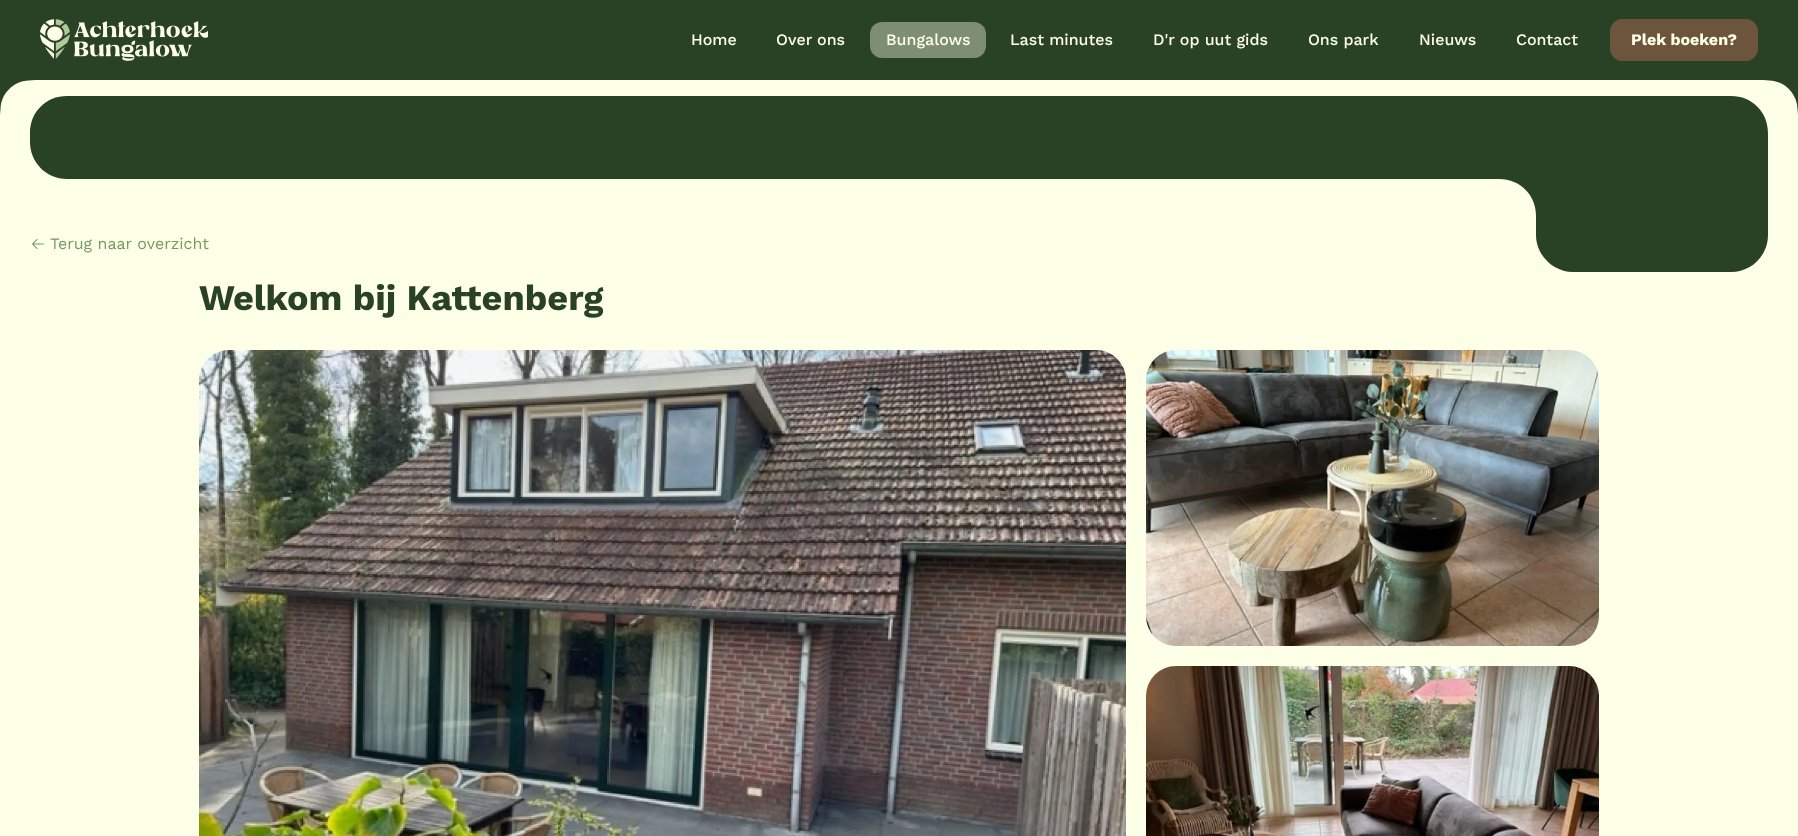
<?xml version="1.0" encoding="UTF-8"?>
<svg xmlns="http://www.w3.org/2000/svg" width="1798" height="836">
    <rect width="100%" height="100%" fill="#FEFFE7"/>
    <rect x="0" y="0" width="1798" height="80" fill="#294226"/>
    <image x="40" y="19" width="168" height="42" href="img_01.png"/>
    <text x="691" y="45" font-family="Work Sans" font-size="16" font-weight="500" fill="#FEFFE7">Home</text>
    <text x="776" y="45" font-family="Work Sans" font-size="16" font-weight="500" fill="#FEFFE7">Over ons</text>
    <rect x="870" y="22" width="116" height="36" rx="12" fill="#7E8E73"/>
    <text x="886" y="45" font-family="Work Sans" font-size="16" font-weight="500" fill="#FEFFE7">Bungalows</text>
    <text x="1010" y="45" font-family="Work Sans" font-size="16" font-weight="500" fill="#FEFFE7">Last minutes</text>
    <text x="1153" y="45" font-family="Work Sans" font-size="16" font-weight="500" fill="#FEFFE7">D'r op uut gids</text>
    <text x="1308" y="45" font-family="Work Sans" font-size="16" font-weight="500" fill="#FEFFE7">Ons park</text>
    <text x="1419" y="45" font-family="Work Sans" font-size="16" font-weight="500" fill="#FEFFE7">Nieuws</text>
    <text x="1516" y="45" font-family="Work Sans" font-size="16" font-weight="500" fill="#FEFFE7">Contact</text>
    <rect x="1610.5" y="19.5" width="147" height="41" rx="11.5" fill="#6D543C" stroke="#6D543C"/>
    <text x="1631" y="45" font-family="Work Sans" font-size="16" font-weight="700" fill="#FEFFE7">Plek boeken?</text>
    <image x="32" y="239" width="12" height="10" href="img_02.png"/>
    <text x="50" y="249" font-family="Work Sans" font-size="16" fill="#769862">Terug naar overzicht</text>
    <path d="M 30 133 C 30 112 46 96 67 96 H 1731 C 1752 96 1768 112 1768 133 V 235 C 1768 255 1752 272 1731 272 H 1573 C 1553 272 1536 255 1536 235 V 216 C 1536 195 1520 179 1499 179 H 67 C 46 179 30 162 30 142 Z" fill="#294226"/>
    <path d="M 0 80 H 35 L 28.5 80.5 C 13.5 81 1 93.5 0.5 109 L 0 115 Z" fill="#294226"/>
    <path d="M 1798 80 H 1763 L 1769.5 80.5 C 1784.5 81 1797 93.5 1797.5 109 L 1798 115 Z" fill="#294226"/>
    <text x="199" y="310" font-family="Work Sans" font-size="36" font-weight="700" fill="#294226">Welkom bij Kattenberg</text>
    <image x="199" y="350" width="927" height="486" href="img_03.png"/>
    <image x="1146" y="350" width="453" height="296" href="img_04.png"/>
    <image x="1146" y="666" width="453" height="170" href="img_05.png"/>
</svg>
